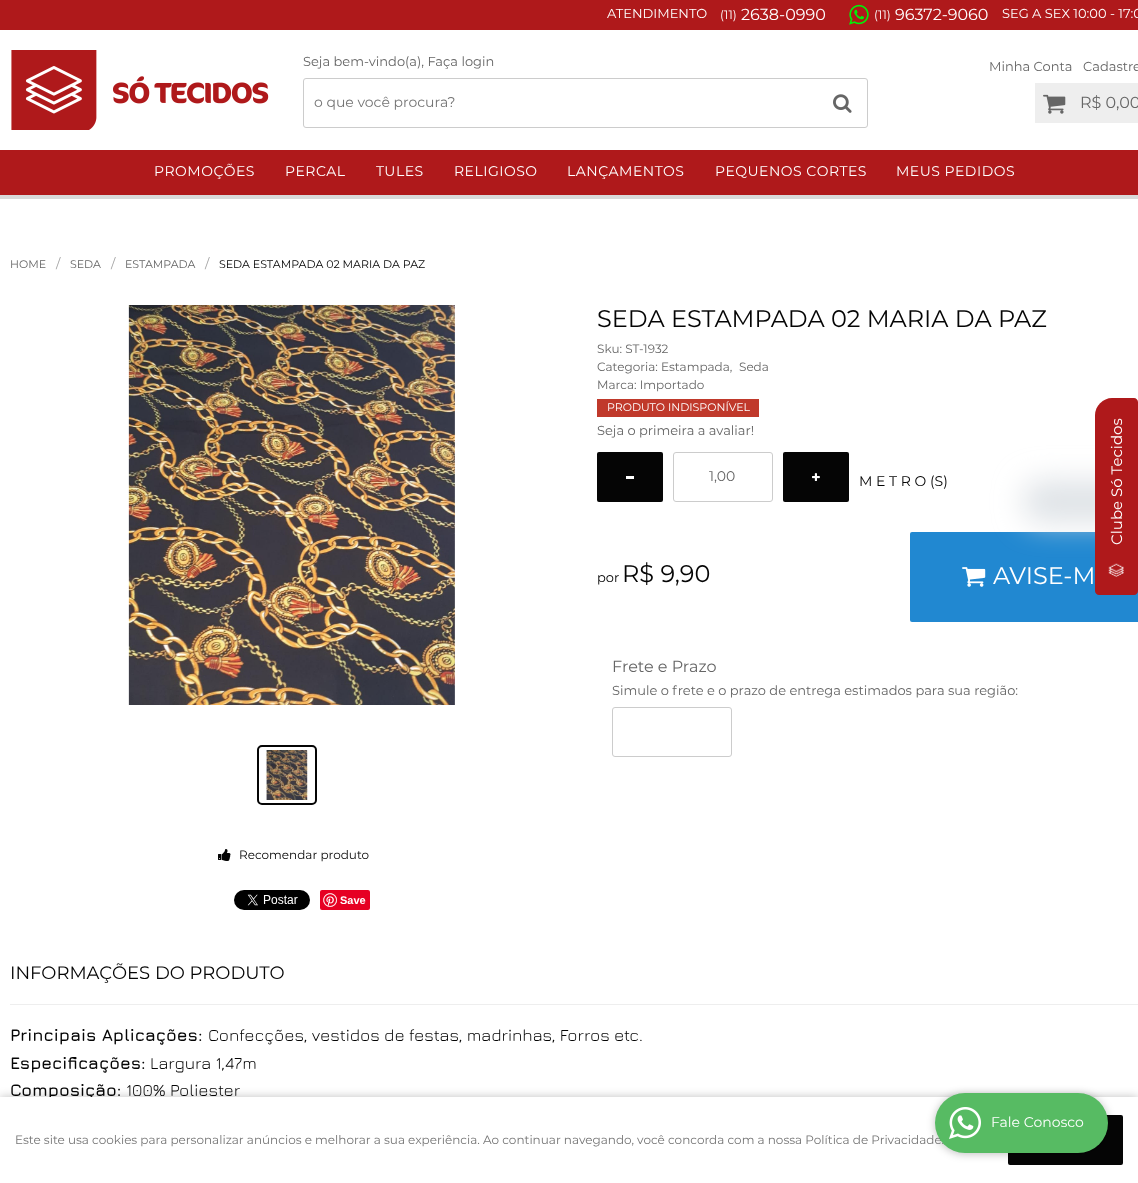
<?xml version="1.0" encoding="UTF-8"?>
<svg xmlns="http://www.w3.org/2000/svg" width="1138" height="1183">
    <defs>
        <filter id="blur1" x="-50%" y="-200%" width="200%" height="500%"><feGaussianBlur stdDeviation="15"/></filter>
        <filter id="blur2" x="-50%" y="-200%" width="200%" height="500%"><feGaussianBlur stdDeviation="5"/></filter>
        <filter id="blur3" x="-50%" y="-200%" width="200%" height="500%"><feGaussianBlur stdDeviation="4"/></filter>
    </defs>
    <rect width="100%" height="100%" fill="#FFFFFF"/>
    <rect x="0" y="0" width="1138" height="30" fill="#AF191B"/>
    <text x="607" y="18" font-family="Montserrat" font-size="13" fill="#FFFFFF">ATENDIMENTO</text>
    <text x="720" y="19" font-family="Montserrat" font-size="12" fill="#FFFFFF">(11)</text>
    <text x="741" y="20" font-family="Montserrat" font-size="16" fill="#FFFFFF">2638-0990</text>
    <image x="849" y="4" width="20" height="21" href="img_01.png"/>
    <text x="874" y="19" font-family="Montserrat" font-size="12" fill="#FFFFFF">(11)</text>
    <text x="895" y="20" font-family="Montserrat" font-size="16" fill="#FFFFFF">96372-9060</text>
    <text x="1002" y="18" font-family="Montserrat" font-size="13" fill="#FFFFFF">SEG A SEX 10:00 - 17:0</text>
    <image x="11" y="50" width="258" height="80" href="img_02.png"/>
    <text x="303" y="66" font-family="Montserrat" font-size="13" fill="#666666">Seja bem-vindo(a), Faça login</text>
    <rect x="303.5" y="78.5" width="564" height="49" rx="2.5" fill="none" stroke="#CCCCCC"/>
    <text x="314" y="107" font-family="Montserrat" font-size="14" fill="#757575">o que você procura?</text>
    <image x="833" y="94" width="19" height="19" href="img_03.png"/>
    <text x="989" y="71" font-family="Montserrat" font-size="13" fill="#666666">Minha Conta</text>
    <text x="1083" y="71" font-family="Montserrat" font-size="13" fill="#666666">Cadastre</text>
    <rect x="1035" y="83" width="103" height="40" fill="#EEEEEE"/>
    <image x="1043" y="94" width="23" height="20" href="img_04.png"/>
    <text x="1080" y="108" font-family="Montserrat" font-size="16" fill="#666666">R$ 0,00</text>
    <rect x="0" y="195" width="1138" height="4" fill="#D9D9D9"/>
    <rect x="0" y="150" width="1138" height="45" fill="#AF191B"/>
    <text x="154" y="176" font-family="Montserrat" font-size="14" letter-spacing="0.5" fill="#FFFFFF">PROMOÇÕES</text>
    <text x="285" y="176" font-family="Montserrat" font-size="14" letter-spacing="0.5" fill="#FFFFFF">PERCAL</text>
    <text x="376" y="176" font-family="Montserrat" font-size="14" letter-spacing="0.5" fill="#FFFFFF">TULES</text>
    <text x="454" y="176" font-family="Montserrat" font-size="14" letter-spacing="0.5" fill="#FFFFFF">RELIGIOSO</text>
    <text x="567" y="176" font-family="Montserrat" font-size="14" letter-spacing="0.5" fill="#FFFFFF">LANÇAMENTOS</text>
    <text x="715" y="176" font-family="Montserrat" font-size="14" letter-spacing="0.5" fill="#FFFFFF">PEQUENOS CORTES</text>
    <text x="896" y="176" font-family="Montserrat" font-size="14" letter-spacing="0.5" fill="#FFFFFF">MEUS PEDIDOS</text>
    <text x="10" y="268" font-family="Montserrat" font-size="11" fill="#666666">HOME</text>
    <text x="56" y="268" font-family="Montserrat" font-size="13" fill="#A3A3A3">/</text>
    <text x="70" y="268" font-family="Montserrat" font-size="11" fill="#666666">SEDA</text>
    <text x="111" y="268" font-family="Montserrat" font-size="13" fill="#A3A3A3">/</text>
    <text x="125" y="268" font-family="Montserrat" font-size="11" fill="#666666">ESTAMPADA</text>
    <text x="205" y="268" font-family="Montserrat" font-size="13" fill="#A3A3A3">/</text>
    <text x="219" y="268" font-family="Montserrat" font-size="11" fill="#050505">SEDA ESTAMPADA 02 MARIA DA PAZ</text>
    <text x="597" y="327" font-family="Montserrat" font-size="24" fill="#050505">SEDA ESTAMPADA 02 MARIA DA PAZ</text>
    <text font-family="Montserrat" font-size="12" fill="#666666">
        <tspan x="597" y="353">Sku: ST-1932</tspan>
        <tspan x="597" y="371">Categoria: Estampada,</tspan>
    </text>
    <text x="739" y="371" font-family="Montserrat" font-size="12" fill="#666666">Seda</text>
    <text x="597" y="389" font-family="Montserrat" font-size="12" fill="#666666">Marca: Importado</text>
    <rect x="597" y="399" width="162" height="18" fill="#C0392B"/>
    <text x="607" y="411" font-family="Montserrat" font-size="11" fill="#FFFFFF">PRODUTO INDISPONÍVEL</text>
    <text x="597" y="435" font-family="Montserrat" font-size="13" fill="#666666">Seja o primeira a avaliar!</text>
    <rect x="597" y="452" width="66" height="50" rx="2" fill="#050505"/>
    <rect x="626" y="476" width="8" height="3" fill="#FFFFFF"/>
    <rect x="673.5" y="452.5" width="99" height="49" rx="2.5" fill="none" stroke="#CCCCCC"/>
    <text x="709" y="481" font-family="Montserrat" font-size="14" fill="#666666">1,00</text>
    <rect x="783" y="452" width="66" height="50" rx="2" fill="#050505"/>
    <image x="812" y="473" width="8" height="8" href="img_05.png"/>
    <text x="859" y="486" font-family="Montserrat" font-size="14" fill="#050505">M E T R O (S)</text>
    <text x="597" y="582" font-family="Montserrat" font-size="13" fill="#050505">por</text>
    <text x="622" y="582" font-family="Montserrat" font-size="24" fill="#050505">R$ 9,90</text>
    <rect x="910" y="532" width="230" height="90" rx="2" fill="#2188D1"/>
    <image x="962" y="567" width="24" height="20" href="img_06.png"/>
    <text x="993" y="584" font-family="Montserrat" font-size="24" fill="#FFFFFF">AVISE-M</text>
    <text x="612" y="672" font-family="Montserrat" font-size="16" fill="#666666">Frete e Prazo</text>
    <text x="612" y="695" font-family="Montserrat" font-size="13" fill="#666666">Simule o frete e o prazo de entrega estimados para sua região:</text>
    <rect x="612.5" y="707.5" width="119" height="49" rx="2.5" fill="none" stroke="#CCCCCC"/>
    <image x="128" y="305" width="327" height="400" href="img_07.png"/>
    <rect x="258" y="746" width="58" height="58" rx="4" fill="none" stroke="#050505" stroke-width="2"/>
    <image x="265" y="750" width="44" height="50" href="img_08.png"/>
    <image x="218" y="849" width="13" height="12" href="img_09.png"/>
    <text x="239" y="859" font-family="Montserrat" font-size="12" fill="#050505">Recomendar produto</text>
    <image x="234" y="890" width="76" height="20" href="img_10.png"/>
    <rect x="320" y="890" width="50" height="20" rx="2" fill="#E60023"/>
    <image x="323" y="893" width="14" height="14" href="img_11.png"/>
    <text x="340" y="904" font-family="Liberation Sans" font-size="11" font-weight="700" fill="#FFFFFF">Save</text>
    <rect x="10" y="1004" width="1128" height="1" fill="#EEEEEE"/>
    <text x="10" y="979" font-family="Montserrat" font-size="18" fill="#050505">INFORMAÇÕES DO PRODUTO</text>
    <text x="10" y="1041" font-family="Jura" font-size="17" font-weight="700" fill="#050505">Principais Aplicações:</text>
    <text x="208" y="1041" font-family="Jura" font-size="17" fill="#050505">Confecções, vestidos de festas, madrinhas, Forros etc.</text>
    <text x="10" y="1069" font-family="Jura" font-size="17" font-weight="700" fill="#050505">Especificações:</text>
    <text x="150" y="1069" font-family="Jura" font-size="17" fill="#050505">Largura 1,47m</text>
    <text x="10" y="1096" font-family="Jura" font-size="17" font-weight="700" fill="#050505">Composição:</text>
    <text x="126" y="1096" font-family="Jura" font-size="17" fill="#050505">100% Poliester</text>
    <rect x="1024" y="481" width="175" height="41" rx="16" fill="#DEE2E6" filter="url(#blur1)"/>
    <path d="M 1095 591 V 415 C 1095 406 1103 398 1112 398 H 1134 C 1136 398 1138 400 1138 402 V 591 C 1138 593 1136 595 1134 595 H 1099 C 1097 595 1095 593 1095 591 Z" fill="#AF191B"/>
    <text x="1122" y="545" transform="rotate(-90 1122 545)" font-family="Montserrat" font-size="15" fill="#FFFFFF">Clube Só Tecidos</text>
    <image x="1108" y="563" width="16" height="14" href="img_12.png"/>
    <rect x="0" y="1097" width="1138" height="86" fill="#000000" fill-opacity="0.25" filter="url(#blur2)"/>
    <rect x="0" y="1097" width="1138" height="86" fill="#FFFFFF"/>
    <rect x="1008" y="1115" width="115" height="50" rx="2" fill="#050505"/>
    <rect x="935" y="1094" width="173" height="60" rx="30" fill="#000000" fill-opacity="0.25" filter="url(#blur3)"/>
    <text x="15" y="1144" font-family="Montserrat" font-size="12" fill="#757575">Este site usa cookies para personalizar anúncios e melhorar a sua experiência. Ao continuar navegando, você concorda com a nossa Política de Privacidade.</text>
    <rect x="935" y="1093" width="173" height="60" rx="30" fill="#57BB63"/>
    <image x="949" y="1107" width="32" height="32" href="img_13.png"/>
    <text x="991" y="1127" font-family="Montserrat" font-size="14" fill="#FFFFFF">Fale Conosco</text>
</svg>
